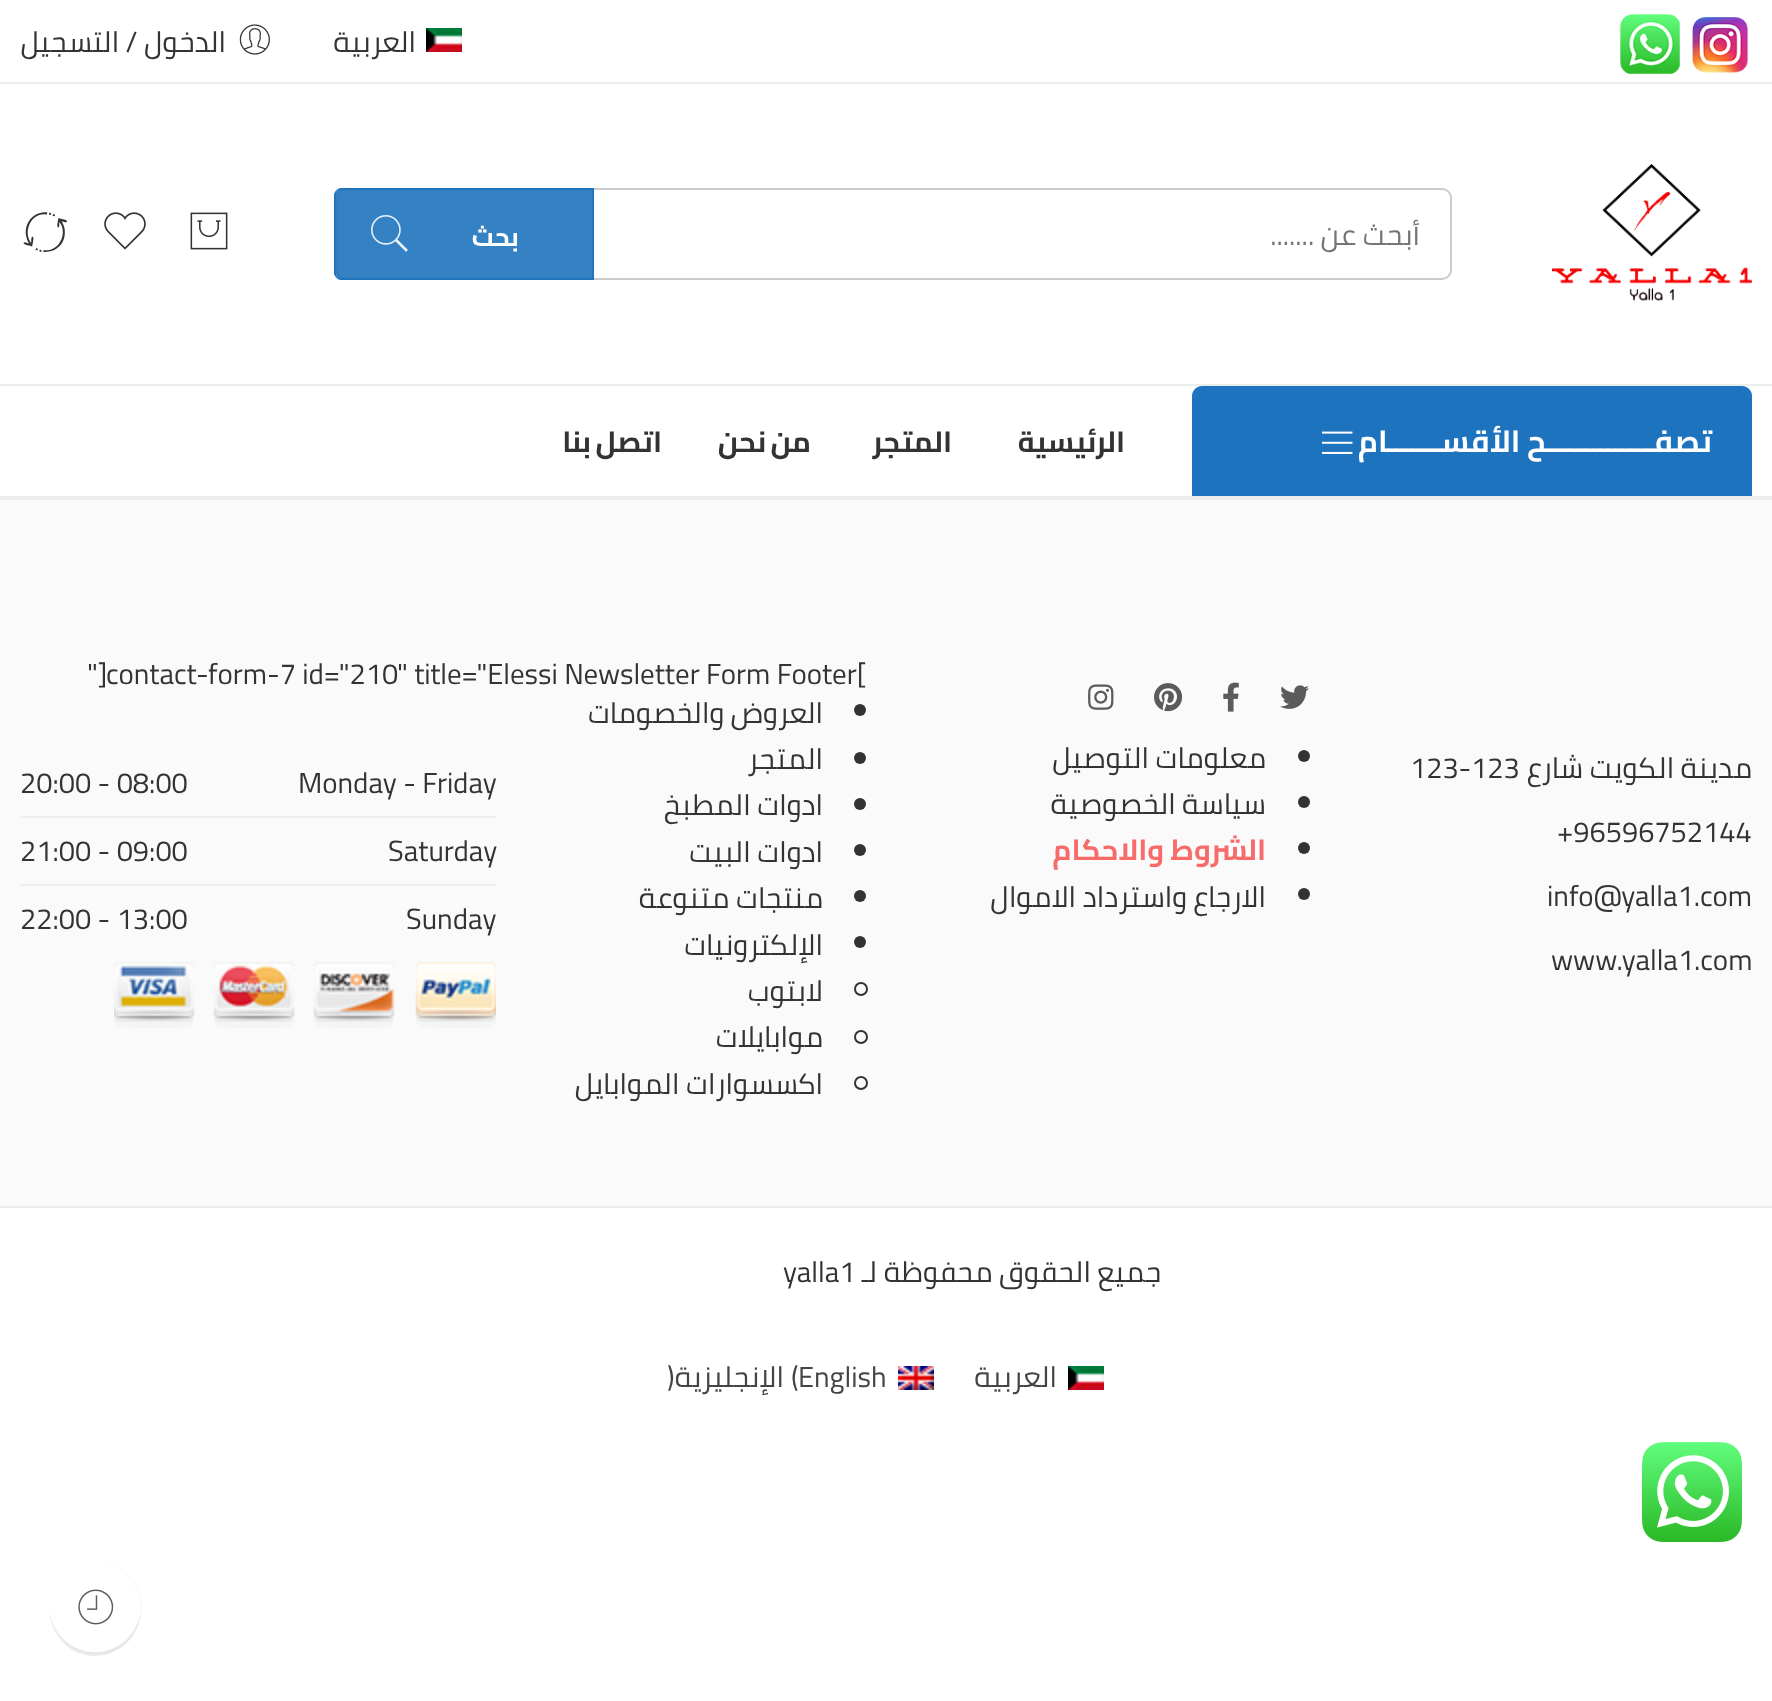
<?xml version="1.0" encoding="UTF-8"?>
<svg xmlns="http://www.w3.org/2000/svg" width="1772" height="1701">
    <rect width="100%" height="100%" fill="#FFFFFF"/>
    <rect x="0" y="82" width="1772" height="2" fill="#ECECEC"/>
    <image x="1692" y="17" width="57" height="56" href="img_01.png"/>
    <image x="1620" y="14" width="60" height="60" href="img_02.png"/>
    <image x="426" y="28" width="36" height="24" href="img_03.png"/>
    <text x="416" y="52" font-family="Cairo" font-size="29" direction="rtl" fill="#333333">العربية</text>
    <image x="239" y="24" width="31" height="31" href="img_04.png"/>
    <text x="226" y="52" font-family="Cairo" font-size="29" direction="rtl" fill="#333333">الدخول / التسجيل</text>
    <image x="1552" y="164" width="200" height="138" href="img_05.png"/>
    <rect x="337" y="189" width="1114" height="90" rx="9" fill="none" stroke="#CCCCCC" stroke-width="2"/>
    <text x="1420" y="245" font-family="Cairo" font-size="29" direction="rtl" fill="#757575">أبحث عن .......</text>
    <path d="M 342 188 H 594 V 280 H 342 C 337.5 280 334 276.5 334 272 V 196 C 334 191.5 337.5 188 342 188 Z" fill="#1E73BE" fill-opacity="0.9"/>
    <path d="M 334 196 V 272 C 334 274 335 276 336 277 V 191 C 335 192 334 194 334 196 Z M 342 188 C 340 188 338 189 337 190 H 592 V 278 H 337 C 338 279 340 280 342 280 H 594 V 188 Z" fill="#1E73BE" fill-opacity="0.9" fill-rule="evenodd"/>
    <text x="519" y="246" font-family="Cairo" font-size="26" font-weight="700" letter-spacing="2" direction="rtl" fill="#FFFFFF">بحث</text>
    <image x="371" y="215" width="37" height="37" href="img_06.png"/>
    <image x="190" y="212" width="38" height="38" href="img_07.png"/>
    <image x="104" y="212" width="42" height="38" href="img_08.png"/>
    <text x="20" y="260" font-family="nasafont" font-size="50" fill="#333333">3</text>
    <rect x="0" y="384" width="1772" height="2" fill="#ECECEC"/>
    <path d="M 1202 386 H 1742 C 1747.5 386 1752 390.5 1752 396 V 496 H 1192 V 396 C 1192 390.5 1196.5 386 1202 386 Z" fill="#1E73BE"/>
    <text x="1712" y="452" font-family="Cairo" font-size="30.5" font-weight="700" direction="rtl" fill="#FFFFFF">تصفــــــــــــــح الأقســـــــام</text>
    <image x="1322" y="431" width="31" height="23" href="img_09.png"/>
    <text x="1125" y="452" font-family="Cairo" font-size="29" font-weight="700" letter-spacing="3" direction="rtl" fill="#333333">الرئيسية</text>
    <text x="952" y="452" font-family="Cairo" font-size="29" font-weight="700" letter-spacing="3" direction="rtl" fill="#333333">المتجر</text>
    <text x="811" y="452" word-spacing="-2" font-family="Cairo" font-size="29" font-weight="700" letter-spacing="3" direction="rtl" fill="#333333">من نحن</text>
    <text x="662" y="452" word-spacing="-2" font-family="Cairo" font-size="29" font-weight="700" letter-spacing="3" direction="rtl" fill="#333333">اتصل بنا</text>
    <rect x="0" y="500" width="1772" height="706" fill="#FAFAFA"/>
    <rect x="0" y="496" width="1772" height="4" fill="#ECECEC"/>
    <text x="1752" y="778" font-family="Cairo" font-size="29" direction="rtl" fill="#333333">مدينة الكويت شارع</text>
    <text x="1410" y="778" font-family="Cairo" font-size="29" fill="#333333">123-123</text>
    <text x="1557" y="842" font-family="Cairo" font-size="29" fill="#333333">+96596752144</text>
    <text x="1547" y="906" font-family="Cairo" font-size="29" fill="#333333">info@yalla1.com</text>
    <text x="1551" y="970" font-family="Cairo" font-size="29" fill="#333333">www.yalla1.com</text>
    <image x="1280" y="685" width="29" height="24" href="img_10.png"/>
    <image x="1223" y="682" width="16" height="30" href="img_11.png"/>
    <image x="1154" y="683" width="29" height="29" href="img_12.png"/>
    <image x="1088" y="684" width="26" height="26" href="img_13.png"/>
    <circle cx="1304" cy="756" r="6" fill="#333333"/>
    <text x="1266" y="768" font-family="Cairo" font-size="29" direction="rtl" fill="#333333">معلومات التوصيل</text>
    <circle cx="1304" cy="802" r="6" fill="#333333"/>
    <text x="1266" y="814" font-family="Cairo" font-size="29" direction="rtl" fill="#333333">سياسة الخصوصية</text>
    <circle cx="1304" cy="848" r="6" fill="#333333"/>
    <text x="1266" y="860" font-family="Cairo" font-size="29" font-weight="700" direction="rtl" fill="#F76B6A">الشروط والاحكام</text>
    <circle cx="1304" cy="894" r="6" fill="#333333"/>
    <text x="1266" y="907" font-family="Cairo" font-size="29" direction="rtl" fill="#333333">الارجاع واسترداد الاموال</text>
    <text x="106" y="684" font-family="Cairo" font-size="29" fill="#333333">contact-form-7 id="210" title="Elessi Newsletter Form Footer[</text>
    <text x="87" y="684" font-family="Cairo" font-size="29" fill="#333333">"]</text>
    <circle cx="860" cy="710" r="6" fill="#333333"/>
    <text x="823" y="723" font-family="Cairo" font-size="29" direction="rtl" fill="#333333">العروض والخصومات</text>
    <circle cx="860" cy="758" r="6" fill="#333333"/>
    <text x="823" y="769" font-family="Cairo" font-size="29" direction="rtl" fill="#333333">المتجر</text>
    <circle cx="860" cy="804" r="6" fill="#333333"/>
    <text x="823" y="815" font-family="Cairo" font-size="29" direction="rtl" fill="#333333">ادوات المطبخ</text>
    <circle cx="860" cy="850" r="6" fill="#333333"/>
    <text x="823" y="862" font-family="Cairo" font-size="29" direction="rtl" fill="#333333">ادوات البيت</text>
    <circle cx="860" cy="896" r="6" fill="#333333"/>
    <text x="823" y="908" font-family="Cairo" font-size="29" direction="rtl" fill="#333333">منتجات متنوعة</text>
    <circle cx="860" cy="942" r="6" fill="#333333"/>
    <text x="823" y="955" font-family="Cairo" font-size="29" direction="rtl" fill="#333333">الإلكترونيات</text>
    <circle cx="861" cy="989" r="6" fill="none" stroke="#333333" stroke-width="2"/>
    <text x="823" y="1001" font-family="Cairo" font-size="29" direction="rtl" fill="#333333">لابتوب</text>
    <circle cx="861" cy="1037" r="6" fill="none" stroke="#333333" stroke-width="2"/>
    <text x="823" y="1047" font-family="Cairo" font-size="29" direction="rtl" fill="#333333">موابايلات</text>
    <circle cx="861" cy="1083" r="6" fill="none" stroke="#333333" stroke-width="2"/>
    <text x="823" y="1094" font-family="Cairo" font-size="29" direction="rtl" fill="#333333">اكسسوارات الموابايل</text>
    <rect x="20" y="816" width="476" height="2" fill="#EFEFEF"/>
    <text x="298" y="793" font-family="Cairo" font-size="29" fill="#333333">Monday - Friday</text>
    <text x="20" y="793" font-family="Cairo" font-size="29" fill="#333333">20:00 - 08:00</text>
    <rect x="20" y="884" width="476" height="2" fill="#EFEFEF"/>
    <text x="388" y="861" font-family="Cairo" font-size="29" fill="#333333">Saturday</text>
    <text x="20" y="861" font-family="Cairo" font-size="29" fill="#333333">21:00 - 09:00</text>
    <text x="406" y="929" font-family="Cairo" font-size="29" fill="#333333">Sunday</text>
    <text x="20" y="929" font-family="Cairo" font-size="29" fill="#333333">22:00 - 13:00</text>
    <image x="114" y="962" width="382" height="66" href="img_14.png"/>
    <rect x="0" y="1206" width="1772" height="2" fill="#ECECEC"/>
    <text x="1161" y="1282" font-family="Cairo" font-size="29" direction="rtl" fill="#333333">جميع الحقوق محفوظة لـ</text>
    <text x="783" y="1282" font-family="Cairo" font-size="29" fill="#333333">yalla1</text>
    <image x="1068" y="1366" width="36" height="24" href="img_03.png"/>
    <text x="1057" y="1387" font-family="Cairo" font-size="29" direction="rtl" fill="#444444">العربية</text>
    <image x="898" y="1366" width="36" height="24" href="img_15.png"/>
    <text x="798" y="1387" font-family="Cairo" font-size="29" fill="#444444">English</text>
    <text x="791" y="1387" font-family="Cairo" font-size="29" fill="#444444">(</text>
    <text x="784" y="1387" font-family="Cairo" font-size="29" direction="rtl" fill="#444444">الإنجليزية</text>
    <text x="667" y="1387" font-family="Cairo" font-size="29" fill="#444444">)</text>
    <image x="1642" y="1442" width="100" height="100" href="img_16.png"/>
    <circle cx="96" cy="1608" r="45.5" fill="none" stroke="#F7F7F7"/>
    <path d="M 140 1609 C 139 1633 119 1652 95 1652 C 71 1652 51 1633 50 1609 C 50 1619 52 1628 58 1636 C 83 1674 142 1654 140 1609 Z" fill="#000000" fill-opacity="0.08"/>
    <circle cx="95" cy="1607" r="45" fill="#FFFFFF"/>
    <image x="78" y="1589" width="36" height="36" href="img_17.png"/>
</svg>
